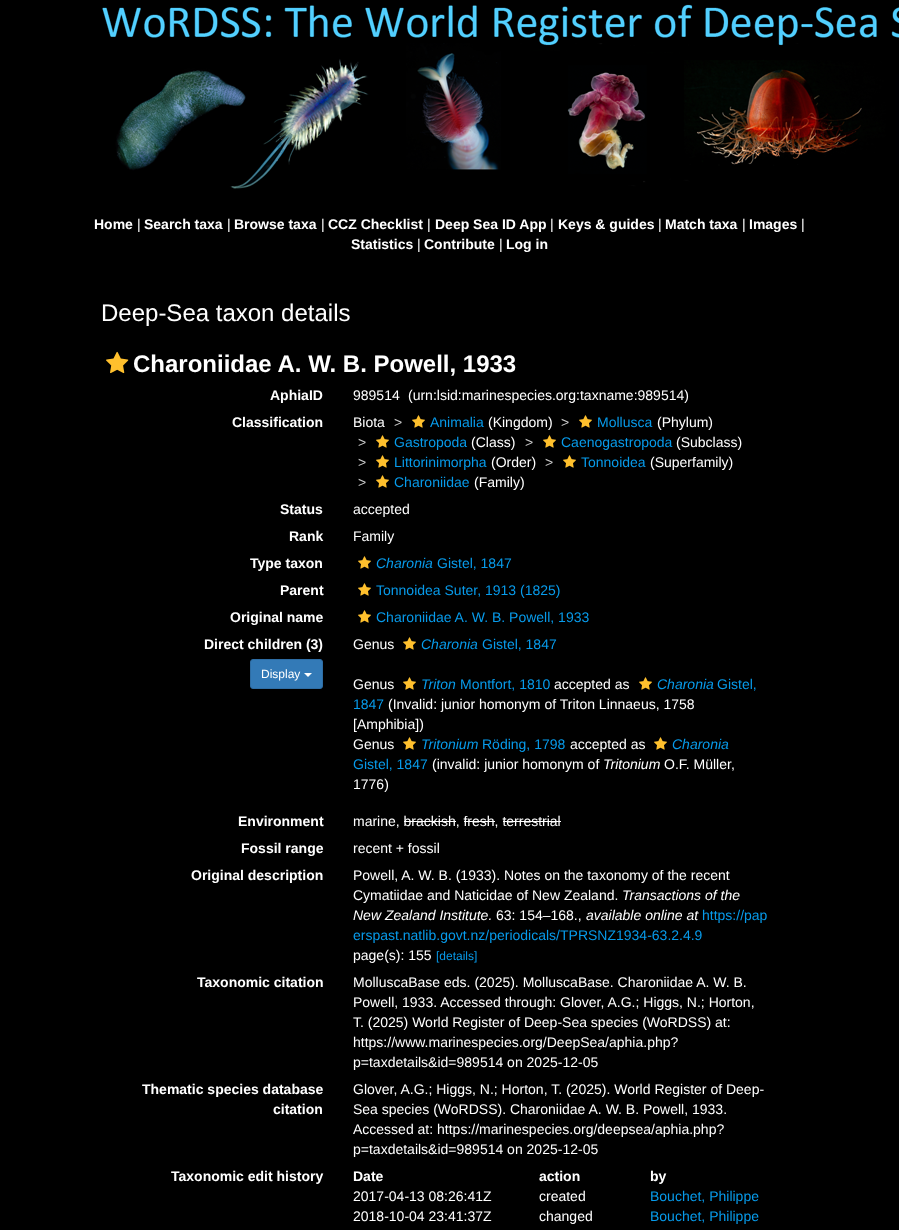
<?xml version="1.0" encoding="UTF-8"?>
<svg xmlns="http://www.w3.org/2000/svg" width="899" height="1230">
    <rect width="100%" height="100%" fill="#000000"/>
    <image x="102" y="4" width="797" height="185" href="img_01.png"/>
    <text x="94" y="229" font-family="Liberation Sans" font-size="14" font-weight="700" fill="#FFFFFF">Home</text>
    <text x="137" y="229" font-family="Liberation Sans" font-size="14" fill="#FFFFFF">|</text>
    <text x="144" y="229" font-family="Liberation Sans" font-size="14" font-weight="700" fill="#FFFFFF">Search taxa</text>
    <text x="227" y="229" font-family="Liberation Sans" font-size="14" fill="#FFFFFF">|</text>
    <text x="234" y="229" font-family="Liberation Sans" font-size="14" font-weight="700" fill="#FFFFFF">Browse taxa</text>
    <text x="321" y="229" font-family="Liberation Sans" font-size="14" fill="#FFFFFF">|</text>
    <text x="328" y="229" font-family="Liberation Sans" font-size="14" font-weight="700" fill="#FFFFFF">CCZ Checklist</text>
    <text x="427" y="229" font-family="Liberation Sans" font-size="14" fill="#FFFFFF">|</text>
    <text x="435" y="229" font-family="Liberation Sans" font-size="14" font-weight="700" fill="#FFFFFF">Deep Sea ID App</text>
    <text x="550" y="229" font-family="Liberation Sans" font-size="14" fill="#FFFFFF">|</text>
    <text x="558" y="229" font-family="Liberation Sans" font-size="14" font-weight="700" fill="#FFFFFF">Keys &amp; guides</text>
    <text x="658" y="229" font-family="Liberation Sans" font-size="14" fill="#FFFFFF">|</text>
    <text x="665" y="229" font-family="Liberation Sans" font-size="14" font-weight="700" fill="#FFFFFF">Match taxa</text>
    <text x="742" y="229" font-family="Liberation Sans" font-size="14" fill="#FFFFFF">|</text>
    <text x="749" y="229" font-family="Liberation Sans" font-size="14" font-weight="700" fill="#FFFFFF">Images</text>
    <text x="801" y="229" font-family="Liberation Sans" font-size="14" fill="#FFFFFF">|</text>
    <text x="351" y="249" font-family="Liberation Sans" font-size="14" font-weight="700" fill="#FFFFFF">Statistics</text>
    <text x="417" y="249" font-family="Liberation Sans" font-size="14" fill="#FFFFFF">|</text>
    <text x="424" y="249" font-family="Liberation Sans" font-size="14" font-weight="700" fill="#FFFFFF">Contribute</text>
    <text x="499" y="249" font-family="Liberation Sans" font-size="14" fill="#FFFFFF">|</text>
    <text x="506" y="249" font-family="Liberation Sans" font-size="14" font-weight="700" fill="#FFFFFF">Log in</text>
    <text x="101" y="321" font-family="Liberation Sans" font-size="24" fill="#FFFFFF">Deep-Sea taxon details</text>
    <image x="106" y="351" width="23" height="23" href="img_02.png"/>
    <text x="133" y="372" font-family="Liberation Sans" font-size="24" font-weight="700" fill="#FFFFFF">Charoniidae A. W. B. Powell, 1933</text>
    <text x="270" y="400" font-family="Liberation Sans" font-size="14" font-weight="700" fill="#FFFFFF">AphiaID</text>
    <text x="353" y="400" font-family="Liberation Sans" font-size="14" fill="#FFFFFF">989514</text>
    <text x="408" y="400" font-family="Liberation Sans" font-size="14" fill="#FFFFFF">(urn:lsid:marinespecies.org:taxname:989514)</text>
    <text x="232" y="427" font-family="Liberation Sans" font-size="14" font-weight="700" fill="#FFFFFF">Classification</text>
    <text x="353" y="427" font-family="Liberation Sans" font-size="14" fill="#FFFFFF">Biota</text>
    <text x="394" y="427" font-family="Liberation Sans" font-size="14" fill="#CCCCCC">&gt;</text>
    <image x="412" y="415" width="13" height="13" href="img_03.png"/>
    <text x="430" y="427" font-family="Liberation Sans" font-size="14" fill="#079BEB">Animalia</text>
    <text x="488" y="427" font-family="Liberation Sans" font-size="14" fill="#FFFFFF">(Kingdom)</text>
    <text x="561" y="427" font-family="Liberation Sans" font-size="14" fill="#CCCCCC">&gt;</text>
    <image x="579" y="415" width="13" height="13" href="img_03.png"/>
    <text x="597" y="427" font-family="Liberation Sans" font-size="14" fill="#079BEB">Mollusca</text>
    <text x="657" y="427" font-family="Liberation Sans" font-size="14" fill="#FFFFFF">(Phylum)</text>
    <text x="358" y="447" font-family="Liberation Sans" font-size="14" fill="#CCCCCC">&gt;</text>
    <image x="376" y="435" width="13" height="13" href="img_03.png"/>
    <text x="394" y="447" font-family="Liberation Sans" font-size="14" fill="#079BEB">Gastropoda</text>
    <text x="471" y="447" font-family="Liberation Sans" font-size="14" fill="#FFFFFF">(Class)</text>
    <text x="525" y="447" font-family="Liberation Sans" font-size="14" fill="#CCCCCC">&gt;</text>
    <image x="543" y="435" width="13" height="13" href="img_03.png"/>
    <text x="561" y="447" font-family="Liberation Sans" font-size="14" fill="#079BEB">Caenogastropoda</text>
    <text x="676" y="447" font-family="Liberation Sans" font-size="14" fill="#FFFFFF">(Subclass)</text>
    <text x="358" y="467" font-family="Liberation Sans" font-size="14" fill="#CCCCCC">&gt;</text>
    <image x="376" y="455" width="13" height="13" href="img_03.png"/>
    <text x="394" y="467" font-family="Liberation Sans" font-size="14" fill="#079BEB">Littorinimorpha</text>
    <text x="491" y="467" font-family="Liberation Sans" font-size="14" fill="#FFFFFF">(Order)</text>
    <text x="545" y="467" font-family="Liberation Sans" font-size="14" fill="#CCCCCC">&gt;</text>
    <image x="563" y="455" width="13" height="13" href="img_03.png"/>
    <text x="581" y="467" font-family="Liberation Sans" font-size="14" fill="#079BEB">Tonnoidea</text>
    <text x="650" y="467" font-family="Liberation Sans" font-size="14" fill="#FFFFFF">(Superfamily)</text>
    <text x="358" y="487" font-family="Liberation Sans" font-size="14" fill="#CCCCCC">&gt;</text>
    <image x="376" y="475" width="13" height="13" href="img_03.png"/>
    <text x="394" y="487" font-family="Liberation Sans" font-size="14" fill="#079BEB">Charoniidae</text>
    <text x="474" y="487" font-family="Liberation Sans" font-size="14" fill="#FFFFFF">(Family)</text>
    <text x="280" y="514" font-family="Liberation Sans" font-size="14" font-weight="700" fill="#FFFFFF">Status</text>
    <text x="353" y="514" font-family="Liberation Sans" font-size="14" fill="#FFFFFF">accepted</text>
    <text x="289" y="541" font-family="Liberation Sans" font-size="14" font-weight="700" fill="#FFFFFF">Rank</text>
    <text x="353" y="541" font-family="Liberation Sans" font-size="14" fill="#FFFFFF">Family</text>
    <text x="250" y="568" font-family="Liberation Sans" font-size="14" font-weight="700" fill="#FFFFFF">Type taxon</text>
    <image x="358" y="556" width="13" height="13" href="img_03.png"/>
    <text x="376" y="568" font-family="Liberation Sans" font-size="14" font-style="italic" fill="#079BEB">Charonia</text>
    <text x="437" y="568" font-family="Liberation Sans" font-size="14" fill="#079BEB">Gistel, 1847</text>
    <text x="280" y="595" font-family="Liberation Sans" font-size="14" font-weight="700" fill="#FFFFFF">Parent</text>
    <image x="358" y="583" width="13" height="13" href="img_03.png"/>
    <text x="376" y="595" font-family="Liberation Sans" font-size="14" fill="#079BEB">Tonnoidea Suter, 1913 (1825)</text>
    <text x="230" y="622" font-family="Liberation Sans" font-size="14" font-weight="700" fill="#FFFFFF">Original name</text>
    <image x="358" y="610" width="13" height="13" href="img_03.png"/>
    <text x="376" y="622" font-family="Liberation Sans" font-size="14" fill="#079BEB">Charoniidae A. W. B. Powell, 1933</text>
    <text x="204" y="649" font-family="Liberation Sans" font-size="14" font-weight="700" fill="#FFFFFF">Direct children (3)</text>
    <rect x="250.5" y="659.5" width="72" height="29" rx="2.5" fill="#337AB7" stroke="#2E6DA4"/>
    <text x="261" y="678" font-family="Liberation Sans" font-size="12" fill="#FFFFFF">Display</text>
    <path d="M 304 673 H 312 L 308 677 Z" fill="#FFFFFF"/>
    <text x="353" y="649" font-family="Liberation Sans" font-size="14" fill="#FFFFFF">Genus</text>
    <image x="403" y="637" width="13" height="13" href="img_03.png"/>
    <text x="421" y="649" font-family="Liberation Sans" font-size="14" font-style="italic" fill="#079BEB">Charonia</text>
    <text x="482" y="649" font-family="Liberation Sans" font-size="14" fill="#079BEB">Gistel, 1847</text>
    <image x="639" y="677" width="13" height="13" href="img_03.png"/>
    <text x="657" y="689" font-family="Liberation Sans" font-size="14" font-style="italic" fill="#079BEB">Charonia</text>
    <text x="717" y="689" font-family="Liberation Sans" font-size="14" fill="#079BEB">Gistel,</text>
    <text x="353" y="709" font-family="Liberation Sans" font-size="14" fill="#079BEB">1847</text>
    <text x="353" y="689" font-family="Liberation Sans" font-size="14" fill="#FFFFFF">Genus</text>
    <image x="403" y="677" width="13" height="13" href="img_03.png"/>
    <text x="421" y="689" font-family="Liberation Sans" font-size="14" font-style="italic" fill="#079BEB">Triton</text>
    <text x="460" y="689" font-family="Liberation Sans" font-size="14" fill="#079BEB">Montfort, 1810</text>
    <text x="554" y="689" font-family="Liberation Sans" font-size="14" fill="#FFFFFF">accepted as</text>
    <text x="388" y="709" font-family="Liberation Sans" font-size="14" fill="#FFFFFF">(Invalid: junior homonym of Triton Linnaeus, 1758</text>
    <text x="353" y="729" font-family="Liberation Sans" font-size="14" fill="#FFFFFF">[Amphibia])</text>
    <image x="654" y="737" width="13" height="13" href="img_03.png"/>
    <text x="672" y="749" font-family="Liberation Sans" font-size="14" font-style="italic" fill="#079BEB">Charonia</text>
    <text x="353" y="769" font-family="Liberation Sans" font-size="14" fill="#079BEB">Gistel, 1847</text>
    <text x="353" y="749" font-family="Liberation Sans" font-size="14" fill="#FFFFFF">Genus</text>
    <image x="403" y="737" width="13" height="13" href="img_03.png"/>
    <text x="421" y="749" font-family="Liberation Sans" font-size="14" font-style="italic" fill="#079BEB">Tritonium</text>
    <text x="482" y="749" font-family="Liberation Sans" font-size="14" fill="#079BEB">Röding, 1798</text>
    <text x="570" y="749" font-family="Liberation Sans" font-size="14" fill="#FFFFFF">accepted as</text>
    <text x="432" y="769" font-family="Liberation Sans" font-size="14" fill="#FFFFFF">(invalid: junior homonym of</text>
    <text x="603" y="769" font-family="Liberation Sans" font-size="14" font-style="italic" fill="#FFFFFF">Tritonium</text>
    <text x="664" y="769" font-family="Liberation Sans" font-size="14" fill="#FFFFFF">O.F. Müller,</text>
    <text x="353" y="789" font-family="Liberation Sans" font-size="14" fill="#FFFFFF">1776)</text>
    <text x="238" y="826" font-family="Liberation Sans" font-size="14" font-weight="700" fill="#FFFFFF">Environment</text>
    <text x="353" y="826" font-family="Liberation Sans" font-size="14" fill="#FFFFFF">marine, brackish, fresh, terrestrial</text>
    <rect x="404" y="821" width="52" height="1" fill="#FFFFFF"/>
    <rect x="464" y="821" width="31" height="1" fill="#FFFFFF"/>
    <rect x="503" y="821" width="58" height="1" fill="#FFFFFF"/>
    <text x="241" y="853" font-family="Liberation Sans" font-size="14" font-weight="700" fill="#FFFFFF">Fossil range</text>
    <text x="353" y="853" font-family="Liberation Sans" font-size="14" fill="#FFFFFF">recent + fossil</text>
    <text x="191" y="880" font-family="Liberation Sans" font-size="14" font-weight="700" fill="#FFFFFF">Original description</text>
    <text font-family="Liberation Sans" font-size="14" fill="#FFFFFF">
        <tspan x="353" y="880">Powell, A. W. B. (1933). Notes on the taxonomy of the recent</tspan>
        <tspan x="353" y="900">Cymatiidae and Naticidae of New Zealand.</tspan>
    </text>
    <text x="622" y="900" font-family="Liberation Sans" font-size="14" font-style="italic" fill="#FFFFFF">Transactions of the</text>
    <text x="353" y="920" font-family="Liberation Sans" font-size="14" font-style="italic" fill="#FFFFFF">New Zealand Institute.</text>
    <text x="496" y="920" font-family="Liberation Sans" font-size="14" fill="#FFFFFF">63: 154–168.,</text>
    <text x="586" y="920" font-family="Liberation Sans" font-size="14" font-style="italic" fill="#FFFFFF">available online at</text>
    <text x="702" y="920" font-family="Liberation Sans" font-size="14" fill="#079BEB">https://pap</text>
    <text x="353" y="940" font-family="Liberation Sans" font-size="14" fill="#079BEB">erspast.natlib.govt.nz/periodicals/TPRSNZ1934-63.2.4.9</text>
    <text x="353" y="960" font-family="Liberation Sans" font-size="14" fill="#FFFFFF">page(s): 155</text>
    <text x="436" y="960" font-family="Liberation Sans" font-size="12" fill="#079BEB">[details]</text>
    <text x="197" y="987" font-family="Liberation Sans" font-size="14" font-weight="700" fill="#FFFFFF">Taxonomic citation</text>
    <text font-family="Liberation Sans" font-size="14" fill="#FFFFFF">
        <tspan x="353" y="987">MolluscaBase eds. (2025). MolluscaBase. Charoniidae A. W. B.</tspan>
        <tspan x="353" y="1007">Powell, 1933. Accessed through: Glover, A.G.; Higgs, N.; Horton,</tspan>
        <tspan x="353" y="1027">T. (2025) World Register of Deep-Sea species (WoRDSS) at:</tspan>
        <tspan x="353" y="1047">https://www.marinespecies.org/DeepSea/aphia.php?</tspan>
        <tspan x="353" y="1067">p=taxdetails&amp;id=989514 on 2025-12-05</tspan>
    </text>
    <text x="142" y="1094" font-family="Liberation Sans" font-size="14" font-weight="700" fill="#FFFFFF">Thematic species database</text>
    <text x="273" y="1114" font-family="Liberation Sans" font-size="14" font-weight="700" fill="#FFFFFF">citation</text>
    <text font-family="Liberation Sans" font-size="14" fill="#FFFFFF">
        <tspan x="353" y="1094">Glover, A.G.; Higgs, N.; Horton, T. (2025). World Register of Deep-</tspan>
        <tspan x="353" y="1114">Sea species (WoRDSS). Charoniidae A. W. B. Powell, 1933.</tspan>
        <tspan x="353" y="1134">Accessed at: https://marinespecies.org/deepsea/aphia.php?</tspan>
        <tspan x="353" y="1154">p=taxdetails&amp;id=989514 on 2025-12-05</tspan>
    </text>
    <text x="171" y="1181" font-family="Liberation Sans" font-size="14" font-weight="700" fill="#FFFFFF">Taxonomic edit history</text>
    <text x="353" y="1181" font-family="Liberation Sans" font-size="14" font-weight="700" fill="#FFFFFF">Date</text>
    <text x="539" y="1181" font-family="Liberation Sans" font-size="14" font-weight="700" fill="#FFFFFF">action</text>
    <text x="650" y="1181" font-family="Liberation Sans" font-size="14" font-weight="700" fill="#FFFFFF">by</text>
    <text x="353" y="1201" font-family="Liberation Sans" font-size="14" fill="#FFFFFF">2017-04-13 08:26:41Z</text>
    <text x="539" y="1201" font-family="Liberation Sans" font-size="14" fill="#FFFFFF">created</text>
    <text x="650" y="1201" font-family="Liberation Sans" font-size="14" fill="#079BEB">Bouchet, Philippe</text>
    <text x="353" y="1221" font-family="Liberation Sans" font-size="14" fill="#FFFFFF">2018-10-04 23:41:37Z</text>
    <text x="539" y="1221" font-family="Liberation Sans" font-size="14" fill="#FFFFFF">changed</text>
    <text x="650" y="1221" font-family="Liberation Sans" font-size="14" fill="#079BEB">Bouchet, Philippe</text>
</svg>
